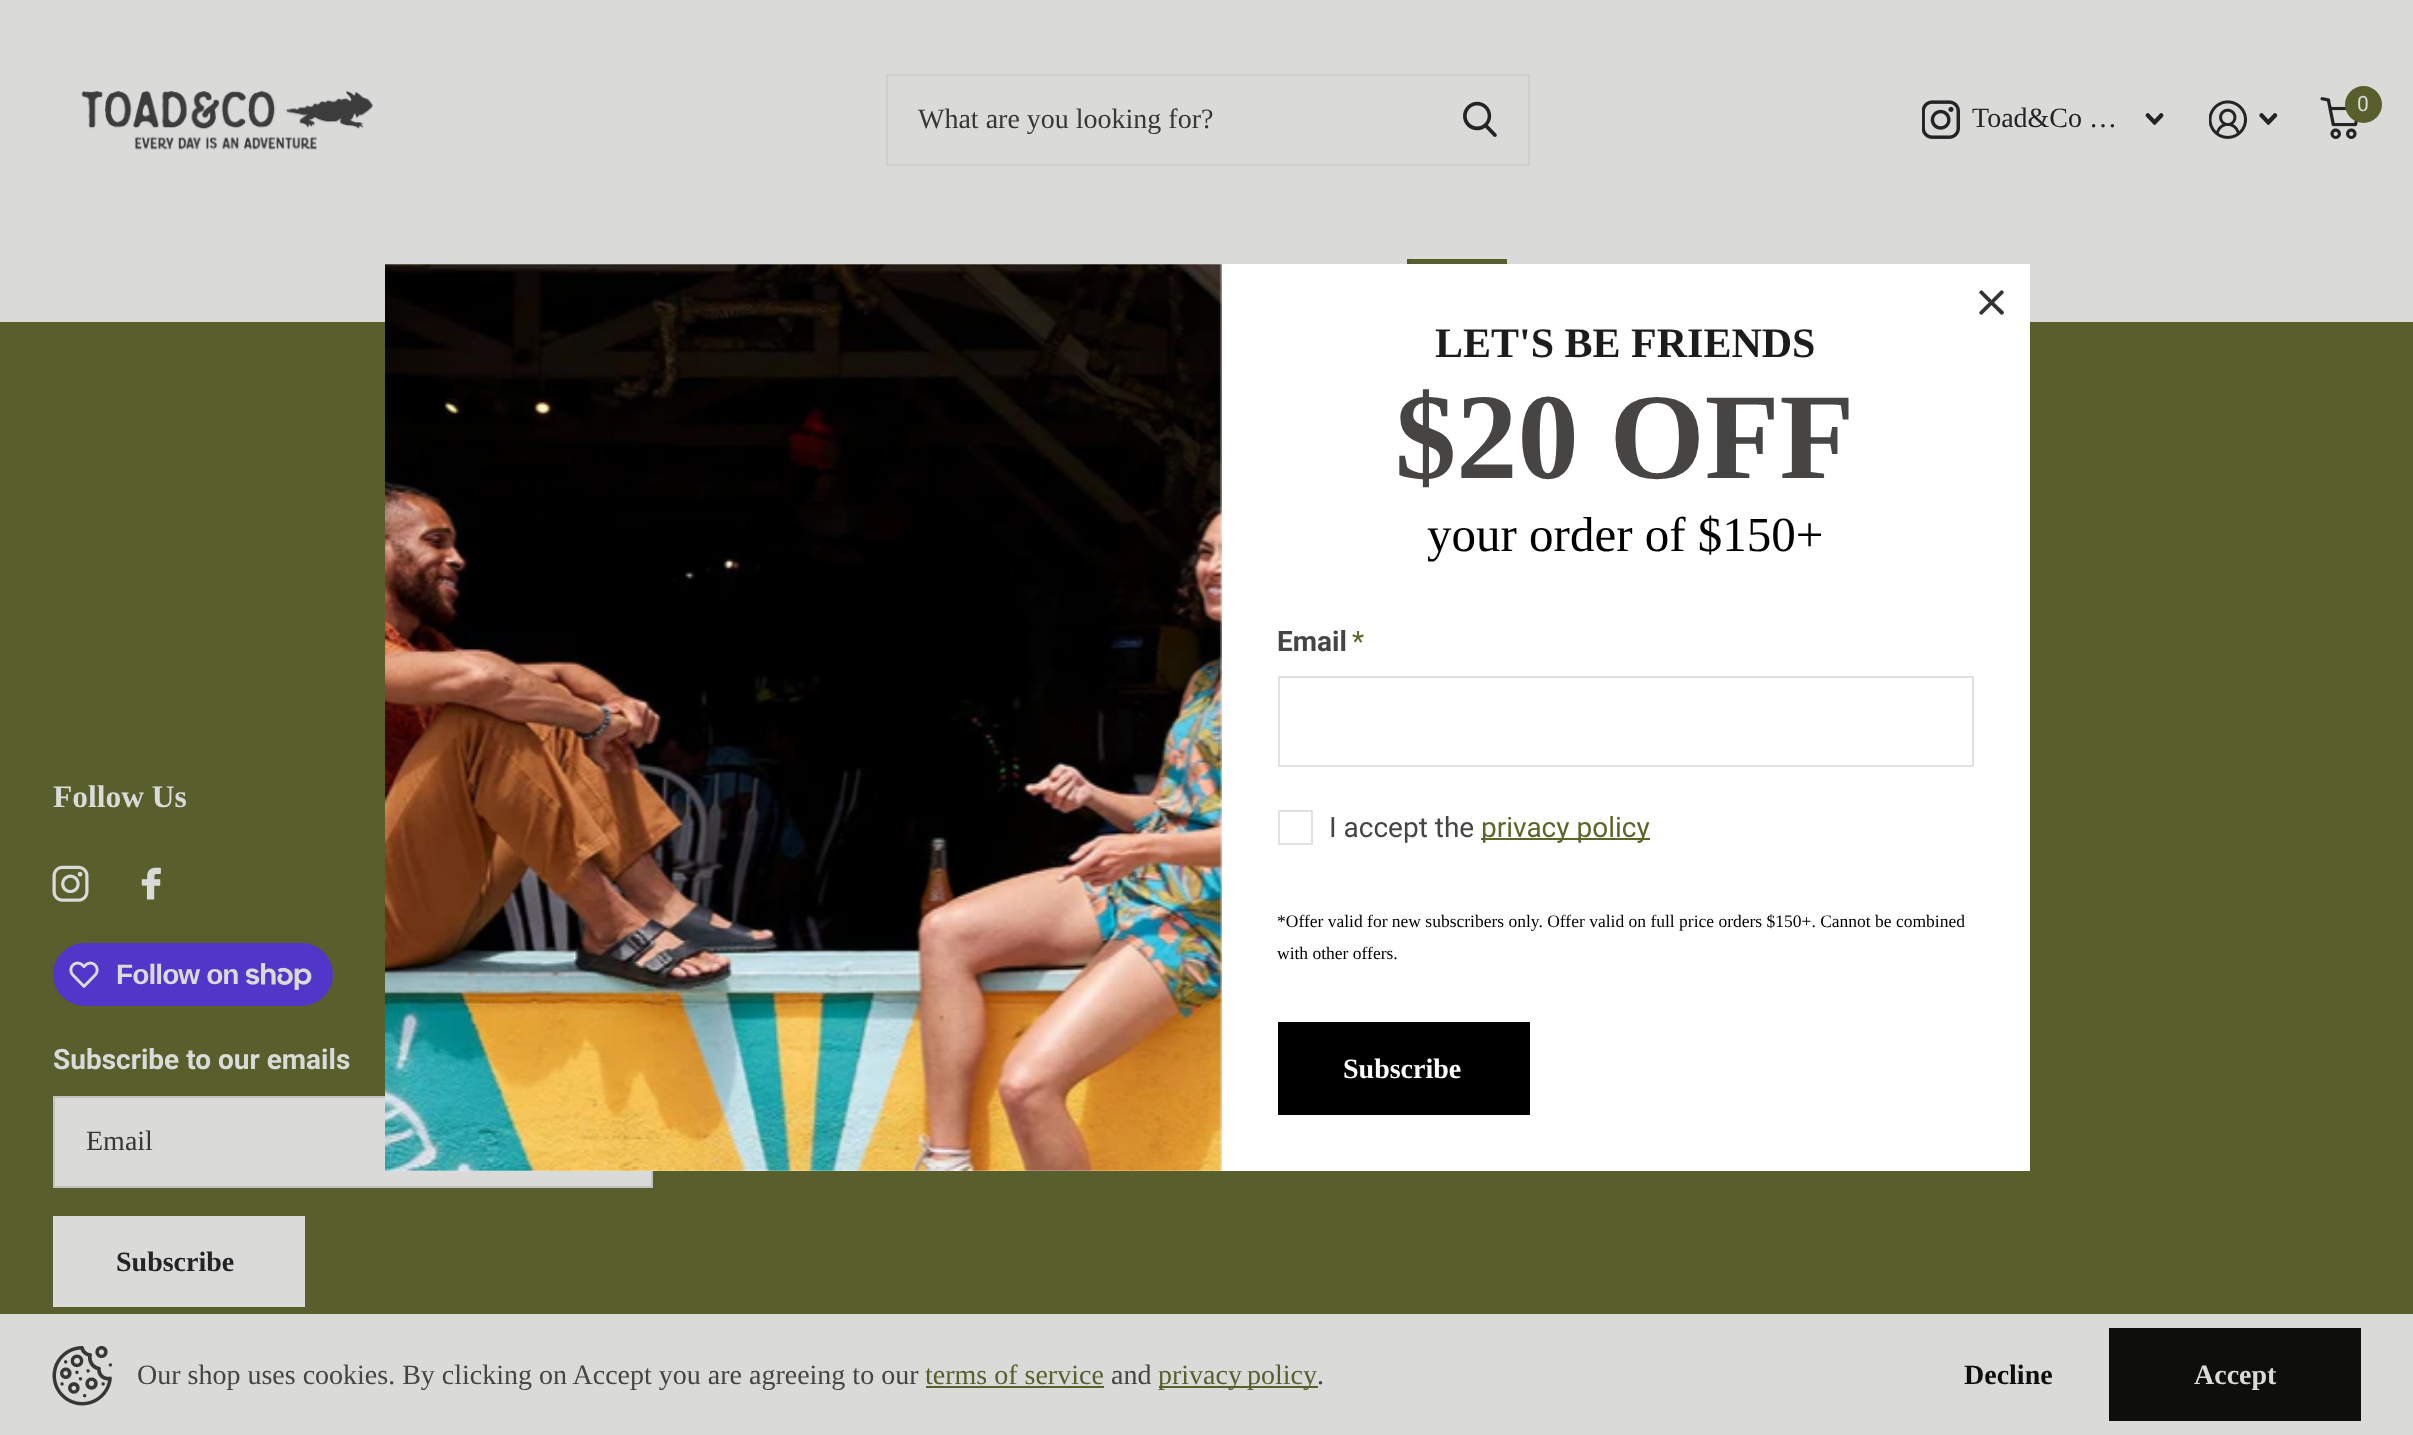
<?xml version="1.0" encoding="UTF-8"?>
<svg xmlns="http://www.w3.org/2000/svg" width="2413" height="1435">
    <defs>
        <clipPath id="clip1"><rect x="1407" y="259" width="100" height="42"/></clipPath>
    </defs>
    <rect width="100%" height="100%" fill="#585F2D"/>
    <rect x="0" y="0" width="2413" height="322" fill="#DADAD9"/>
    <image x="81" y="91" width="293" height="59" href="img_01.png"/>
    <rect x="887" y="75" width="642" height="90" fill="none" stroke="#D0CFCF" stroke-width="2"/>
    <text x="918" y="128" font-family="Liberation Serif" font-size="28" fill="#373736">What are you looking for?</text>
    <image x="1463" y="101" width="34" height="36" href="img_02.png"/>
    <image x="1922" y="100" width="38" height="39" href="img_03.png"/>
    <text x="1972" y="127" font-family="Liberation Serif" font-size="28" fill="#252424">Toad&amp;Co …</text>
    <image x="2145" y="113" width="19" height="12" href="img_04.png"/>
    <image x="2209" y="100" width="38" height="39" href="img_05.png"/>
    <image x="2259" y="113" width="19" height="12" href="img_06.png"/>
    <image x="2320" y="97" width="38" height="42" href="img_07.png"/>
    <circle cx="2363.5" cy="104.5" r="18.5" fill="#585F2D"/>
    <text x="2357" y="111" font-family="Roboto" font-size="21" fill="#DADAD9">0</text>
    <rect x="1410" y="259" width="97" height="5" fill="#585F2D"/>
    <g clip-path="url(#clip1)">
        <path d="M 1234 86 H 1680 V 474 H 1234 Z M 1410 256 H 1510 V 298 H 1410 Z" fill="#50572A" fill-rule="evenodd"/>
    </g>
    <text x="53" y="807" font-family="Liberation Serif" font-size="31.5" font-weight="700" fill="#DADAD9">Follow Us</text>
    <image x="52" y="865" width="37" height="37" href="img_08.png"/>
    <image x="141" y="867" width="20" height="33" href="img_09.png"/>
    <rect x="53" y="943" width="280" height="63" rx="31.5" fill="#5137C9"/>
    <image x="69" y="961" width="30" height="27" href="img_10.png"/>
    <text x="116" y="984" font-family="Liberation Sans" font-size="28" font-weight="700" letter-spacing="-0.9" fill="#DADAD9">Follow on</text>
    <image x="245" y="963" width="67" height="27" href="img_11.png"/>
    <text x="53" y="1069" font-family="Roboto" font-size="28" font-weight="700" fill="#DADAD9">Subscribe to our emails</text>
    <rect x="54" y="1097" width="598" height="90" fill="#DADAD9" stroke="#C2C2C1" stroke-width="2"/>
    <text x="86" y="1150" font-family="Liberation Serif" font-size="28" fill="#373736">Email</text>
    <rect x="53" y="1216" width="252" height="91" fill="#DADAD9"/>
    <text x="116" y="1271" font-family="Liberation Serif" font-size="28" font-weight="700" fill="#252424">Subscribe</text>
    <rect x="385" y="264" width="1645" height="907" fill="#FFFFFF"/>
    <image x="385" y="264" width="837" height="907" href="img_12.png"/>
    <image x="1979" y="290" width="25" height="25" href="img_13.png"/>
    <text x="1435" y="357" font-family="Liberation Serif" font-size="42" font-weight="700" fill="#1D1C1C">LET'S BE FRIENDS</text>
    <text x="1395" y="478" font-family="Liberation Serif" font-size="122.5" font-weight="700" fill="#464543">$20 OFF</text>
    <text x="1427" y="551" font-family="Liberation Serif" font-size="49" fill="#000000">your order of $150+</text>
    <text x="1277" y="651" font-family="Roboto" font-size="28" font-weight="700" fill="#464543">Email</text>
    <text x="1352" y="651" font-family="Roboto" font-size="28" fill="#5C6628">*</text>
    <rect x="1279" y="677" width="694" height="89" fill="none" stroke="#E1E1E1" stroke-width="2"/>
    <rect x="1279" y="811" width="33" height="33" fill="none" stroke="#E1E1E1" stroke-width="2"/>
    <text x="1329" y="837" font-family="Roboto" font-size="28" fill="#464543">I accept the</text>
    <rect x="1481" y="838" width="169" height="2" fill="#5C6628"/>
    <text x="1481" y="837" font-family="Roboto" font-size="28" fill="#5C6628">privacy policy</text>
    <text font-family="Liberation Serif" font-size="17.5" fill="#000000">
        <tspan x="1277" y="927">*Offer valid for new subscribers only. Offer valid on full price orders $150+. Cannot be combined</tspan>
        <tspan x="1277" y="959">with other offers.</tspan>
    </text>
    <rect x="1278" y="1022" width="252" height="93" fill="#000000"/>
    <text x="1343" y="1078" font-family="Liberation Serif" font-size="28" font-weight="700" fill="#FFFFFF">Subscribe</text>
    <rect x="0" y="1314" width="2413" height="121" fill="#DADAD9"/>
    <image x="52" y="1346" width="60" height="60" href="img_14.png"/>
    <text x="137" y="1384" font-family="Liberation Serif" font-size="28" fill="#464543">Our shop uses cookies. By clicking on Accept you are agreeing to our</text>
    <text x="925" y="1384" font-family="Liberation Serif" font-size="28" fill="#585F2D">terms of service</text>
    <rect x="926" y="1386" width="178" height="2" fill="#585F2D"/>
    <text x="1111" y="1384" font-family="Liberation Serif" font-size="28" fill="#464543">and</text>
    <rect x="1159" y="1386" width="159" height="2" fill="#585F2D"/>
    <text x="1158" y="1384" word-spacing="-2" font-family="Liberation Serif" font-size="28" fill="#585F2D">privacy policy</text>
    <text x="1317" y="1384" font-family="Liberation Serif" font-size="28" fill="#464543">.</text>
    <text x="1964" y="1384" font-family="Liberation Serif" font-size="28" font-weight="700" fill="#0E0E0D">Decline</text>
    <rect x="2109" y="1328" width="252" height="93" fill="#0E0E0D"/>
    <text x="2194" y="1384" font-family="Liberation Serif" font-size="28" font-weight="700" fill="#DADAD9">Accept</text>
</svg>
